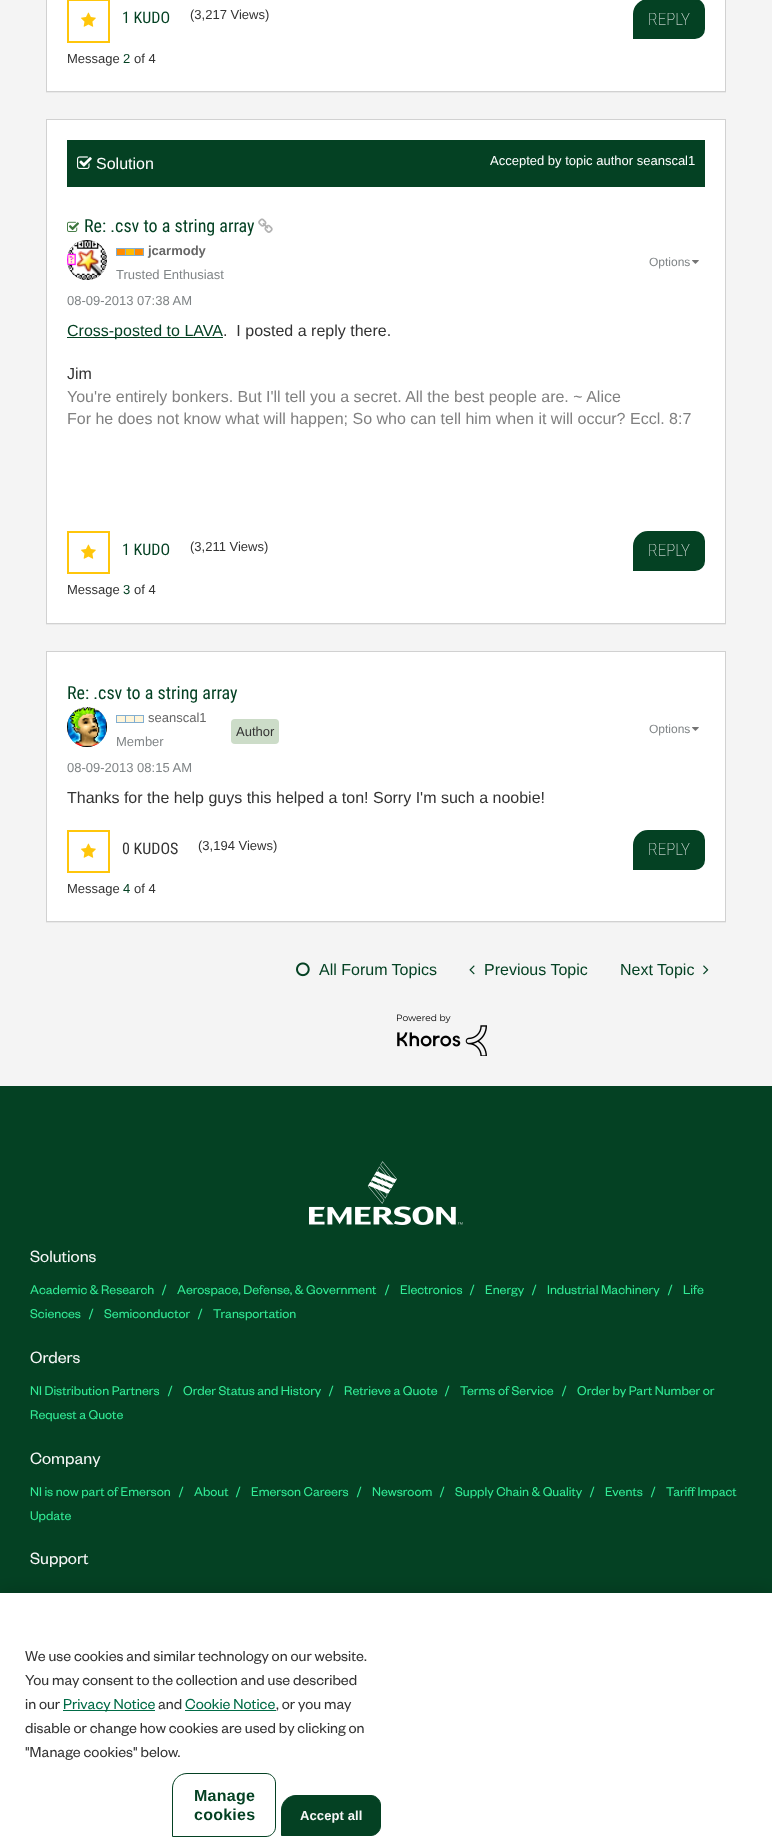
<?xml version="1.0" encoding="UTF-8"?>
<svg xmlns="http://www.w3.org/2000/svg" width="772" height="1847">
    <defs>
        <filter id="blur1" x="-50%" y="-200%" width="200%" height="500%"><feGaussianBlur stdDeviation="0.5"/></filter>
        <clipPath id="clip1"><path d="M 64 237 H 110 V 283 H 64 Z M 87 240 C 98 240 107 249 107 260 C 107 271 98 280 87 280 C 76 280 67 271 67 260 C 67 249 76 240 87 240 Z" clip-rule="evenodd"/></clipPath>
        <filter id="blur2" x="-50%" y="-200%" width="200%" height="500%"><feGaussianBlur stdDeviation="9"/></filter>
    </defs>
    <rect width="100%" height="100%" fill="#F4F4F4"/>
    <rect x="46" y="-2" width="680" height="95" fill="#000000" fill-opacity="0.05" filter="url(#blur1)"/>
    <rect x="46.5" y="-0.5" width="679" height="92" fill="#FFFFFF" stroke="#D1D1D1"/>
    <rect x="67.5" y="-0.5" width="42" height="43" fill="none" stroke="#FFC60B"/>
    <rect x="68.5" y="0.5" width="40" height="41" fill="none" stroke="#FFC60B"/>
    <image x="81" y="12" width="15" height="15" href="img_01.png"/>
    <text x="122" y="23" font-family="Roboto Condensed" font-size="16" fill="#044123">1 KUDO</text>
    <text x="190" y="19" font-family="Liberation Sans" font-size="13" fill="#333333">(3,217 Views)</text>
    <text x="67" y="63" font-family="Liberation Sans" font-size="13" fill="#333333">Message</text>
    <text x="123" y="63" font-family="Liberation Sans" font-size="13" fill="#044123">2</text>
    <text x="134" y="63" font-family="Liberation Sans" font-size="13" fill="#333333">of 4</text>
    <path d="M 648 0 H 695 C 700 0 704 4 704 9 V 29 C 704 34 700 38 695 38 H 634 V 14 C 634 6.5 640.5 0 648 0 Z" fill="#044123" stroke="#044123" stroke-width="2"/>
    <text x="648" y="25" font-family="Roboto Condensed" font-size="17" font-weight="100" fill="#F6F6F6">REPLY</text>
    <rect x="46" y="120" width="680" height="505" fill="#000000" fill-opacity="0.05" filter="url(#blur1)"/>
    <rect x="46.5" y="119.5" width="679" height="504" fill="#FFFFFF" stroke="#D1D1D1"/>
    <rect x="67" y="140" width="638" height="47" fill="#044123"/>
    <image x="77" y="156" width="15" height="13" href="img_02.png"/>
    <text x="96" y="169" font-family="Liberation Sans" font-size="16" fill="#FFFFFF">Solution</text>
    <text x="490" y="165" font-family="Liberation Sans" font-size="13" fill="#FFFFFF">Accepted by topic author seanscal1</text>
    <image x="67" y="221" width="12" height="11" href="img_03.png"/>
    <text x="84" y="232" font-family="Roboto Condensed" font-size="18" fill="#044123">Re: .csv to a string array</text>
    <image x="258" y="218" width="15" height="15" href="img_04.png"/>
    <g clip-path="url(#clip1)">
        <rect x="67" y="240" width="40" height="40" rx="20" fill="#C4C4C4" filter="url(#blur1)"/>
    </g>
    <image x="67" y="240" width="40" height="40" href="img_05.png"/>
    <image x="116" y="248" width="28" height="8" href="img_06.png"/>
    <text x="148" y="255" font-family="Liberation Sans" font-size="13" font-weight="700" fill="#666666">jcarmody</text>
    <text x="116" y="279" font-family="Liberation Sans" font-size="13" fill="#808587">Trusted Enthusiast</text>
    <text x="649" y="266" font-family="Liberation Sans" font-size="12" fill="#808587">Options</text>
    <image x="692" y="260" width="7" height="4" href="img_07.png"/>
    <text x="67" y="305" font-family="Liberation Sans" font-size="13" fill="#808587">08-09-2013 07:38 AM</text>
    <rect x="67" y="337" width="156" height="1" fill="#044123"/>
    <text x="67" y="336" font-family="Liberation Sans" font-size="16" fill="#044123">Cross-posted to LAVA</text>
    <text x="223" y="336" font-family="Liberation Sans" font-size="16" fill="#333333" xml:space="preserve">.  I posted a reply there.</text>
    <text x="67" y="379" font-family="Liberation Sans" font-size="16" fill="#333333">Jim</text>
    <text font-family="Liberation Sans" font-size="16" fill="#808080">
        <tspan x="67" y="402">You're entirely bonkers. But I'll tell you a secret. All the best people are. ~ Alice</tspan>
        <tspan x="67" y="424">For he does not know what will happen; So who can tell him when it will occur? Eccl. 8:7</tspan>
    </text>
    <rect x="67.5" y="531.5" width="42" height="42" fill="none" stroke="#FFC60B"/>
    <rect x="68.5" y="532.5" width="40" height="40" fill="none" stroke="#FFC60B"/>
    <image x="81" y="544" width="15" height="15" href="img_01.png"/>
    <text x="122" y="555" font-family="Roboto Condensed" font-size="16" fill="#044123">1 KUDO</text>
    <text x="190" y="551" font-family="Liberation Sans" font-size="13" fill="#333333">(3,211 Views)</text>
    <text x="67" y="594" font-family="Liberation Sans" font-size="13" fill="#333333">Message</text>
    <text x="123" y="594" font-family="Liberation Sans" font-size="13" fill="#044123">3</text>
    <text x="134" y="594" font-family="Liberation Sans" font-size="13" fill="#333333">of 4</text>
    <path d="M 648 532 H 695 C 700 532 704 536 704 541 V 561 C 704 566 700 570 695 570 H 634 V 546 C 634 538.5 640.5 532 648 532 Z" fill="#044123" stroke="#044123" stroke-width="2"/>
    <text x="648" y="556" font-family="Roboto Condensed" font-size="17" font-weight="100" fill="#F6F6F6">REPLY</text>
    <rect x="46" y="652" width="680" height="271" fill="#000000" fill-opacity="0.05" filter="url(#blur1)"/>
    <rect x="46.5" y="651.5" width="679" height="270" fill="#FFFFFF" stroke="#D1D1D1"/>
    <text x="67" y="699" font-family="Roboto Condensed" font-size="18" fill="#044123">Re: .csv to a string array</text>
    <rect x="67" y="707" width="40" height="40" rx="20" fill="#C4C4C4" filter="url(#blur1)"/>
    <image x="67" y="707" width="40" height="40" href="img_08.png"/>
    <image x="116" y="715" width="28" height="8" href="img_09.png"/>
    <text x="148" y="722" font-family="Liberation Sans" font-size="13" fill="#666666">seanscal1</text>
    <text x="116" y="746" font-family="Liberation Sans" font-size="13" fill="#808587">Member</text>
    <rect x="231" y="719" width="48" height="25" rx="4" fill="#CCDCC8"/>
    <text x="236" y="736" font-family="Liberation Sans" font-size="13" fill="#333333">Author</text>
    <text x="649" y="733" font-family="Liberation Sans" font-size="12" fill="#808587">Options</text>
    <image x="692" y="727" width="7" height="4" href="img_07.png"/>
    <text x="67" y="772" font-family="Liberation Sans" font-size="13" fill="#808587">08-09-2013 08:15 AM</text>
    <text x="67" y="803" font-family="Liberation Sans" font-size="16" fill="#333333">Thanks for the help guys this helped a ton! Sorry I'm such a noobie!</text>
    <rect x="67.5" y="830.5" width="42" height="42" fill="none" stroke="#FFC60B"/>
    <rect x="68.5" y="831.5" width="40" height="40" fill="none" stroke="#FFC60B"/>
    <image x="81" y="843" width="15" height="15" href="img_01.png"/>
    <text x="122" y="854" font-family="Roboto Condensed" font-size="16" fill="#333333">0 KUDOS</text>
    <text x="198" y="850" font-family="Liberation Sans" font-size="13" fill="#333333">(3,194 Views)</text>
    <text x="67" y="893" font-family="Liberation Sans" font-size="13" fill="#333333">Message</text>
    <text x="123" y="893" font-family="Liberation Sans" font-size="13" fill="#044123">4</text>
    <text x="134" y="893" font-family="Liberation Sans" font-size="13" fill="#333333">of 4</text>
    <path d="M 648 831 H 695 C 700 831 704 835 704 840 V 860 C 704 865 700 869 695 869 H 634 V 845 C 634 837.5 640.5 831 648 831 Z" fill="#044123" stroke="#044123" stroke-width="2"/>
    <text x="648" y="855" font-family="Roboto Condensed" font-size="17" font-weight="100" fill="#F6F6F6">REPLY</text>
    <image x="296" y="962" width="14" height="15" href="img_10.png"/>
    <text x="319" y="975" font-family="Liberation Sans" font-size="16" fill="#044123">All Forum Topics</text>
    <image x="469" y="965" width="6" height="10" href="img_11.png"/>
    <text x="484" y="975" font-family="Liberation Sans" font-size="16" fill="#044123">Previous Topic</text>
    <text x="620" y="975" font-family="Liberation Sans" font-size="16" fill="#044123">Next Topic</text>
    <image x="703" y="965" width="6" height="10" href="img_12.png"/>
    <image x="397" y="1014" width="90" height="42" href="img_13.png"/>
    <rect x="0" y="1086" width="772" height="507" fill="#044123"/>
    <image x="309" y="1161" width="154" height="64" href="img_14.png"/>
    <text x="30" y="1262" font-family="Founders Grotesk" font-size="18" fill="#F6F6F6">Solutions</text>
    <text x="30" y="1294" font-family="Founders Grotesk" font-size="14" fill="#32EB96">Academic &amp; Research</text>
    <text x="162" y="1294" font-family="Founders Grotesk" font-size="14" fill="#32EB96">/</text>
    <text x="177" y="1294" font-family="Founders Grotesk" font-size="14" fill="#32EB96">Aerospace, Defense, &amp; Government</text>
    <text x="385" y="1294" font-family="Founders Grotesk" font-size="14" fill="#32EB96">/</text>
    <text x="400" y="1294" font-family="Founders Grotesk" font-size="14" fill="#32EB96">Electronics</text>
    <text x="470" y="1294" font-family="Founders Grotesk" font-size="14" fill="#32EB96">/</text>
    <text x="485" y="1294" font-family="Founders Grotesk" font-size="14" fill="#32EB96">Energy</text>
    <text x="532" y="1294" font-family="Founders Grotesk" font-size="14" fill="#32EB96">/</text>
    <text x="547" y="1294" font-family="Founders Grotesk" font-size="14" fill="#32EB96">Industrial Machinery</text>
    <text x="668" y="1294" font-family="Founders Grotesk" font-size="14" fill="#32EB96">/</text>
    <text x="683" y="1294" font-family="Founders Grotesk" font-size="14" fill="#32EB96">Life</text>
    <text x="30" y="1318" font-family="Founders Grotesk" font-size="14" fill="#32EB96">Sciences</text>
    <text x="89" y="1318" font-family="Founders Grotesk" font-size="14" fill="#32EB96">/</text>
    <text x="104" y="1318" font-family="Founders Grotesk" font-size="14" fill="#32EB96">Semiconductor</text>
    <text x="198" y="1318" font-family="Founders Grotesk" font-size="14" fill="#32EB96">/</text>
    <text x="213" y="1318" font-family="Founders Grotesk" font-size="14" fill="#32EB96">Transportation</text>
    <text x="30" y="1363" font-family="Founders Grotesk" font-size="18" fill="#F6F6F6">Orders</text>
    <text x="30" y="1395" font-family="Founders Grotesk" font-size="14" fill="#32EB96">NI Distribution Partners</text>
    <text x="168" y="1395" font-family="Founders Grotesk" font-size="14" fill="#32EB96">/</text>
    <text x="183" y="1395" font-family="Founders Grotesk" font-size="14" fill="#32EB96">Order Status and History</text>
    <text x="329" y="1395" font-family="Founders Grotesk" font-size="14" fill="#32EB96">/</text>
    <text x="344" y="1395" font-family="Founders Grotesk" font-size="14" fill="#32EB96">Retrieve a Quote</text>
    <text x="445" y="1395" font-family="Founders Grotesk" font-size="14" fill="#32EB96">/</text>
    <text x="460" y="1395" font-family="Founders Grotesk" font-size="14" fill="#32EB96">Terms of Service</text>
    <text x="562" y="1395" font-family="Founders Grotesk" font-size="14" fill="#32EB96">/</text>
    <text x="577" y="1395" font-family="Founders Grotesk" font-size="14" fill="#32EB96">Order by Part Number or</text>
    <text x="30" y="1419" font-family="Founders Grotesk" font-size="14" fill="#32EB96">Request a Quote</text>
    <text x="30" y="1464" font-family="Founders Grotesk" font-size="18" fill="#F6F6F6">Company</text>
    <text x="30" y="1496" font-family="Founders Grotesk" font-size="14" fill="#32EB96">NI is now part of Emerson</text>
    <text x="179" y="1496" font-family="Founders Grotesk" font-size="14" fill="#32EB96">/</text>
    <text x="194" y="1496" font-family="Founders Grotesk" font-size="14" fill="#32EB96">About</text>
    <text x="236" y="1496" font-family="Founders Grotesk" font-size="14" fill="#32EB96">/</text>
    <text x="251" y="1496" font-family="Founders Grotesk" font-size="14" fill="#32EB96">Emerson Careers</text>
    <text x="357" y="1496" font-family="Founders Grotesk" font-size="14" fill="#32EB96">/</text>
    <text x="372" y="1496" font-family="Founders Grotesk" font-size="14" fill="#32EB96">Newsroom</text>
    <text x="440" y="1496" font-family="Founders Grotesk" font-size="14" fill="#32EB96">/</text>
    <text x="455" y="1496" font-family="Founders Grotesk" font-size="14" fill="#32EB96">Supply Chain &amp; Quality</text>
    <text x="590" y="1496" font-family="Founders Grotesk" font-size="14" fill="#32EB96">/</text>
    <text x="605" y="1496" font-family="Founders Grotesk" font-size="14" fill="#32EB96">Events</text>
    <text x="651" y="1496" font-family="Founders Grotesk" font-size="14" fill="#32EB96">/</text>
    <text x="666" y="1496" font-family="Founders Grotesk" font-size="14" fill="#32EB96">Tariff Impact</text>
    <text x="30" y="1520" font-family="Founders Grotesk" font-size="14" fill="#32EB96">Update</text>
    <text x="30" y="1564" font-family="Founders Grotesk" font-size="18" fill="#F6F6F6">Support</text>
    <rect x="0" y="1593" width="772" height="254" fill="#000000" fill-opacity="0.2" filter="url(#blur2)"/>
    <rect x="0" y="1593" width="772" height="254" fill="#FFFFFF"/>
    <text font-family="Founders Grotesk" font-size="16" fill="#333333">
        <tspan x="25" y="1661">We use cookies and similar technology on our website.</tspan>
        <tspan x="25" y="1685">You may consent to the collection and use described</tspan>
        <tspan x="25" y="1709">in our</tspan>
    </text>
    <rect x="63" y="1710" width="92" height="1" fill="#006B46"/>
    <text x="63" y="1709" font-family="Founders Grotesk" font-size="16" fill="#006B46">Privacy Notice</text>
    <text x="158" y="1709" font-family="Founders Grotesk" font-size="16" fill="#333333">and</text>
    <text x="185" y="1709" font-family="Founders Grotesk" font-size="16" fill="#006B46">Cookie Notice</text>
    <rect x="185" y="1710" width="91" height="1" fill="#006B46"/>
    <text x="276" y="1709" font-family="Founders Grotesk" font-size="16" fill="#333333">, or you may</text>
    <text font-family="Founders Grotesk" font-size="16" fill="#333333">
        <tspan x="25" y="1733">disable or change how cookies are used by clicking on</tspan>
        <tspan x="25" y="1757">"Manage cookies" below.</tspan>
    </text>
    <path d="M 187 1773.5 H 266 C 271 1773.5 275.5 1778 275.5 1783 V 1827 C 275.5 1832 271 1836.5 266 1836.5 H 172.5 V 1788 C 172.5 1780 179 1773.5 187 1773.5 Z" fill="none" stroke="#044123"/>
    <text font-family="Liberation Sans" font-size="16" font-weight="700" letter-spacing="0.25" fill="#044123">
        <tspan x="194" y="1801">Manage</tspan>
        <tspan x="194" y="1820">cookies</tspan>
    </text>
    <path d="M 296 1795.5 H 371 C 376 1795.5 380.5 1800 380.5 1805 V 1826 C 380.5 1831 376 1835.5 371 1835.5 H 281.5 V 1810 C 281.5 1802 288 1795.5 296 1795.5 Z" fill="#044123" stroke="#044123"/>
    <text x="300" y="1820" font-family="Liberation Sans" font-size="13" font-weight="700" letter-spacing="0.1" fill="#F6F6F6">Accept all</text>
</svg>
